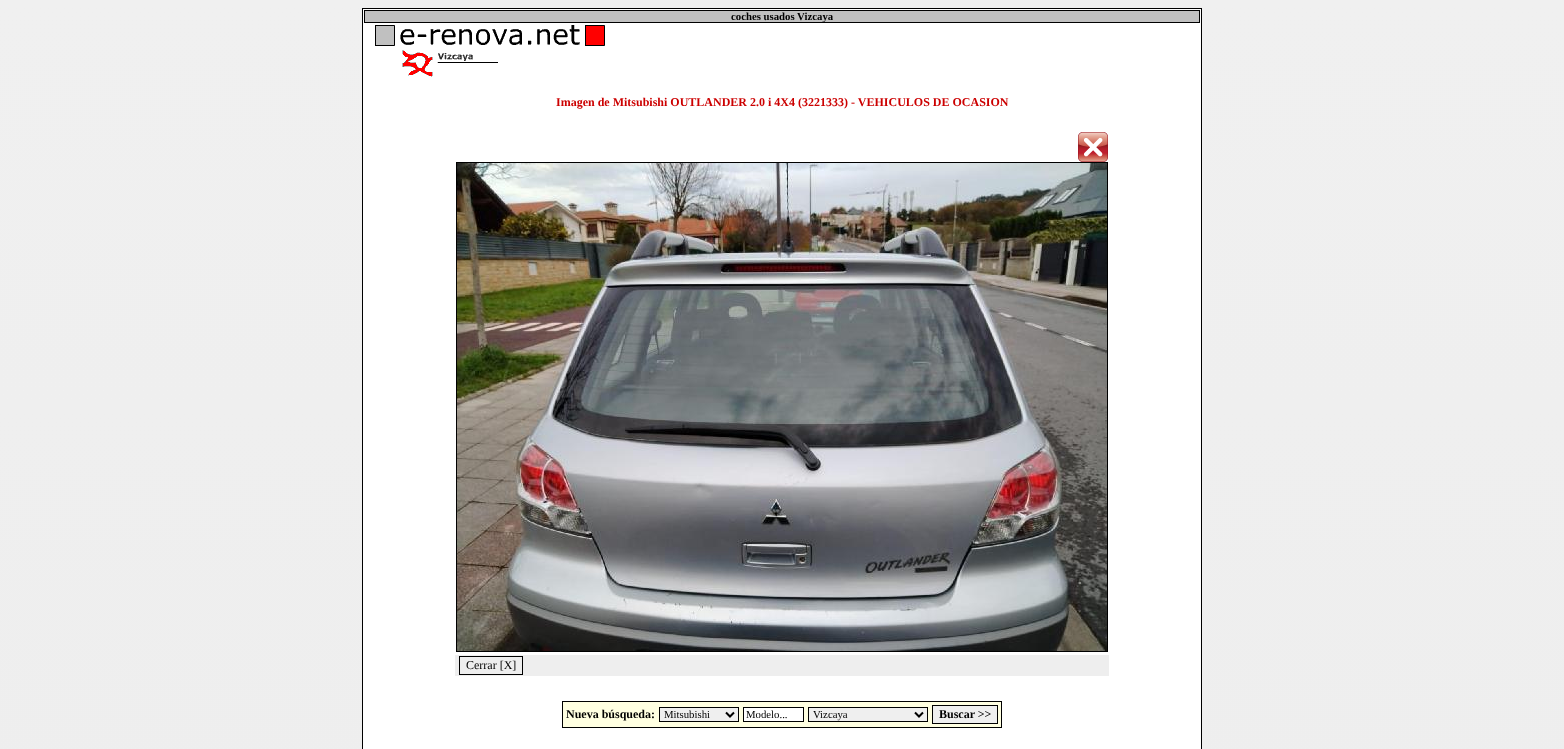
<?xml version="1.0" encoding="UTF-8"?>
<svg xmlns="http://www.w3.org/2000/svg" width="1564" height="749">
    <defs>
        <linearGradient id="g1" gradientUnits="userSpaceOnUse" x1="782" y1="0" x2="782" y2="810"><stop offset="0" stop-color="#F0F0F0"/><stop offset="1" stop-color="#EEEEEE"/></linearGradient>
    </defs>
    <rect width="100%" height="100%" fill="#FFFFFF"/>
    <rect x="0" y="0" width="1564" height="749" fill="url(#g1)"/>
    <rect x="362" y="8" width="840" height="741" fill="#000000"/>
    <rect x="363" y="9" width="838" height="740" fill="#FFFFFF"/>
    <rect x="364" y="10" width="836" height="13" fill="#000000"/>
    <rect x="365" y="11" width="834" height="11" fill="#C0C0C0"/>
    <text x="731" y="20" font-family="Liberation Serif" font-size="10.75" font-weight="700" fill="#000000">coches usados Vizcaya</text>
    <image x="375" y="25" width="230" height="52" href="img_01.png"/>
    <text x="556" y="106" font-family="Liberation Serif" font-size="12" font-weight="700" fill="#CC0000">Imagen de Mitsubishi OUTLANDER 2.0 i 4X4 (3221333) - VEHICULOS DE OCASION</text>
    <image x="1078" y="132" width="30" height="30" href="img_02.png"/>
    <rect x="456.5" y="162.5" width="651" height="489" fill="none" stroke="#000000"/>
    <image x="457" y="163" width="650" height="488" href="img_03.png"/>
    <rect x="455" y="655" width="654" height="21" fill="#EEEEEE"/>
    <rect x="459.5" y="656.5" width="63" height="18" fill="none" stroke="#000000"/>
    <text x="466" y="669" font-family="Liberation Serif" font-size="12" fill="#000000">Cerrar [X]</text>
    <rect x="562" y="701" width="440" height="27" fill="#000000"/>
    <rect x="563" y="702" width="438" height="25" fill="#FFFFE1"/>
    <text x="566" y="718" font-family="Liberation Serif" font-size="12" font-weight="700" fill="#000000">Nueva búsqueda:</text>
    <rect x="659.5" y="707.5" width="79" height="14" fill="#EFEFEF" stroke="#000000"/>
    <path d="M 726 712.5 L 730 716.5 L 734 712.5" fill="none" stroke="#000000" stroke-width="2"/>
    <text x="664" y="718" font-family="Liberation Serif" font-size="10.75" fill="#000000">Mitsubishi</text>
    <rect x="743.5" y="707.5" width="60" height="14" fill="#FFFFFF" stroke="#000000"/>
    <text x="746" y="718" font-family="Liberation Serif" font-size="10.75" fill="#000000">Modelo...</text>
    <rect x="808.5" y="707.5" width="119" height="14" fill="#EFEFEF" stroke="#000000"/>
    <path d="M 915 712.5 L 919 716.5 L 923 712.5" fill="none" stroke="#000000" stroke-width="2"/>
    <text x="813" y="718" font-family="Liberation Serif" font-size="10.75" fill="#000000">Vizcaya</text>
    <rect x="932.5" y="705.5" width="65" height="18" fill="#EFEFEF" stroke="#000000"/>
    <text x="939" y="718" font-family="Liberation Serif" font-size="12" font-weight="700" fill="#000000">Buscar &gt;&gt;</text>
</svg>
